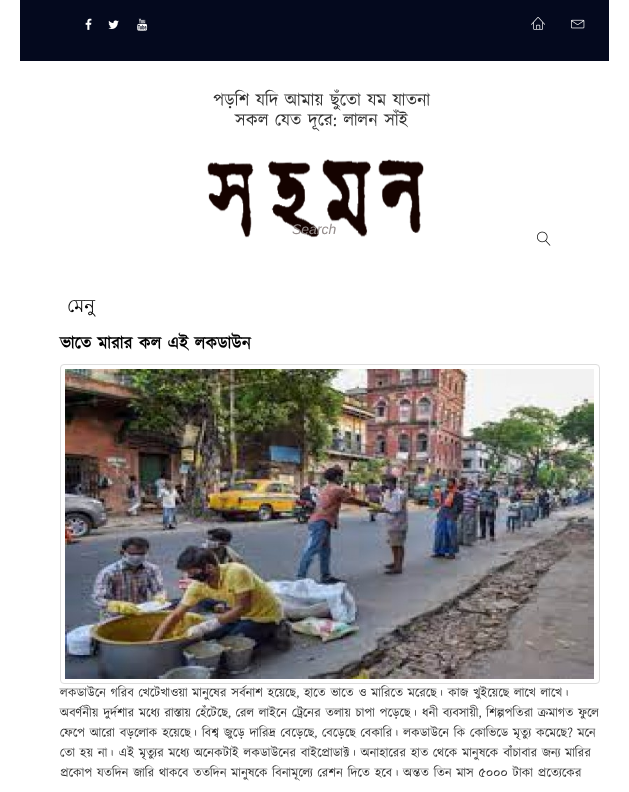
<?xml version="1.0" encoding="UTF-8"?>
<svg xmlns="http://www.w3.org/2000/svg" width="629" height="792">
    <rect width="100%" height="100%" fill="#FFFFFF"/>
    <rect x="20" y="0" width="589" height="61" fill="#04091E"/>
    <image x="85" y="18" width="7" height="12" href="img_01.png"/>
    <image x="108" y="20" width="11" height="9" href="img_02.png"/>
    <image x="137" y="18" width="11" height="13" href="img_03.png"/>
    <image x="531" y="17" width="14" height="13" href="img_04.png"/>
    <image x="571" y="19" width="14" height="10" href="img_05.png"/>
    <text x="213" y="106" font-family="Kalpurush" font-size="18" fill="#333333">পড়শি যদি আমায় ছুঁতো যম যাতনা</text>
    <text x="235" y="126" font-family="Kalpurush" font-size="18" fill="#333333">সকল যেত দূরে: লালন সাঁই</text>
    <image x="207" y="159" width="217" height="79" href="img_06.png"/>
    <text x="292" y="234" font-family="Liberation Sans" font-size="14" font-style="italic" fill="#958D8C">Search</text>
    <image x="537" y="231" width="14" height="15" href="img_07.png"/>
    <text x="67" y="312" font-family="Lohit Bengali" font-size="18" fill="#000000">মেনু</text>
    <text x="60" y="349" font-family="Kalpurush" font-size="17.5" font-weight="700" fill="#000000">ভাতে মারার কল এই লকডাউন</text>
    <rect x="60.5" y="364.5" width="539" height="319" rx="3.5" fill="none" stroke="#DDDDDD"/>
    <image x="65" y="369" width="529" height="310" href="img_08.png"/>
    <text font-family="Kalpurush" font-size="13" fill="#333333">
        <tspan x="60" y="697">লকডাউনে গরিব খেটেখাওয়া মানুষের সর্বনাশ হয়েছে, হাতে ভাতে ও মারিতে মরেছে। কাজ খুইয়েছে লাখে লাখে।</tspan>
        <tspan x="60" y="717">অবর্ণনীয় দুর্দশার মধ্যে রাস্তায় হেঁটেছে, রেল লাইনে ট্রেনের তলায় চাপা পড়েছে। ধনী ব্যবসায়ী, শিল্পপতিরা ক্রমাগত ফুলে</tspan>
        <tspan x="60" y="737">ফেপে আরো বড়লোক হয়েছে। বিশ্ব জুড়ে দারিদ্র বেড়েছে, বেড়েছে বেকারি। লকডাউনে কি কোভিডে মৃত্যু কমেছে? মনে</tspan>
        <tspan x="60" y="757">তো হয় না। এই মৃত্যুর মধ্যে অনেকটাই লকডাউনের বাইপ্রোডাক্ট। অনাহারের হাত থেকে মানুষকে বাঁচাবার জন্য মারির</tspan>
        <tspan x="60" y="777">প্রকোপ যতদিন জারি থাকবে ততদিন মানুষকে বিনামূল্যে রেশন দিতে হবে। অন্তত তিন মাস ৫০০০ টাকা প্রত্যেকের</tspan>
    </text>
</svg>
